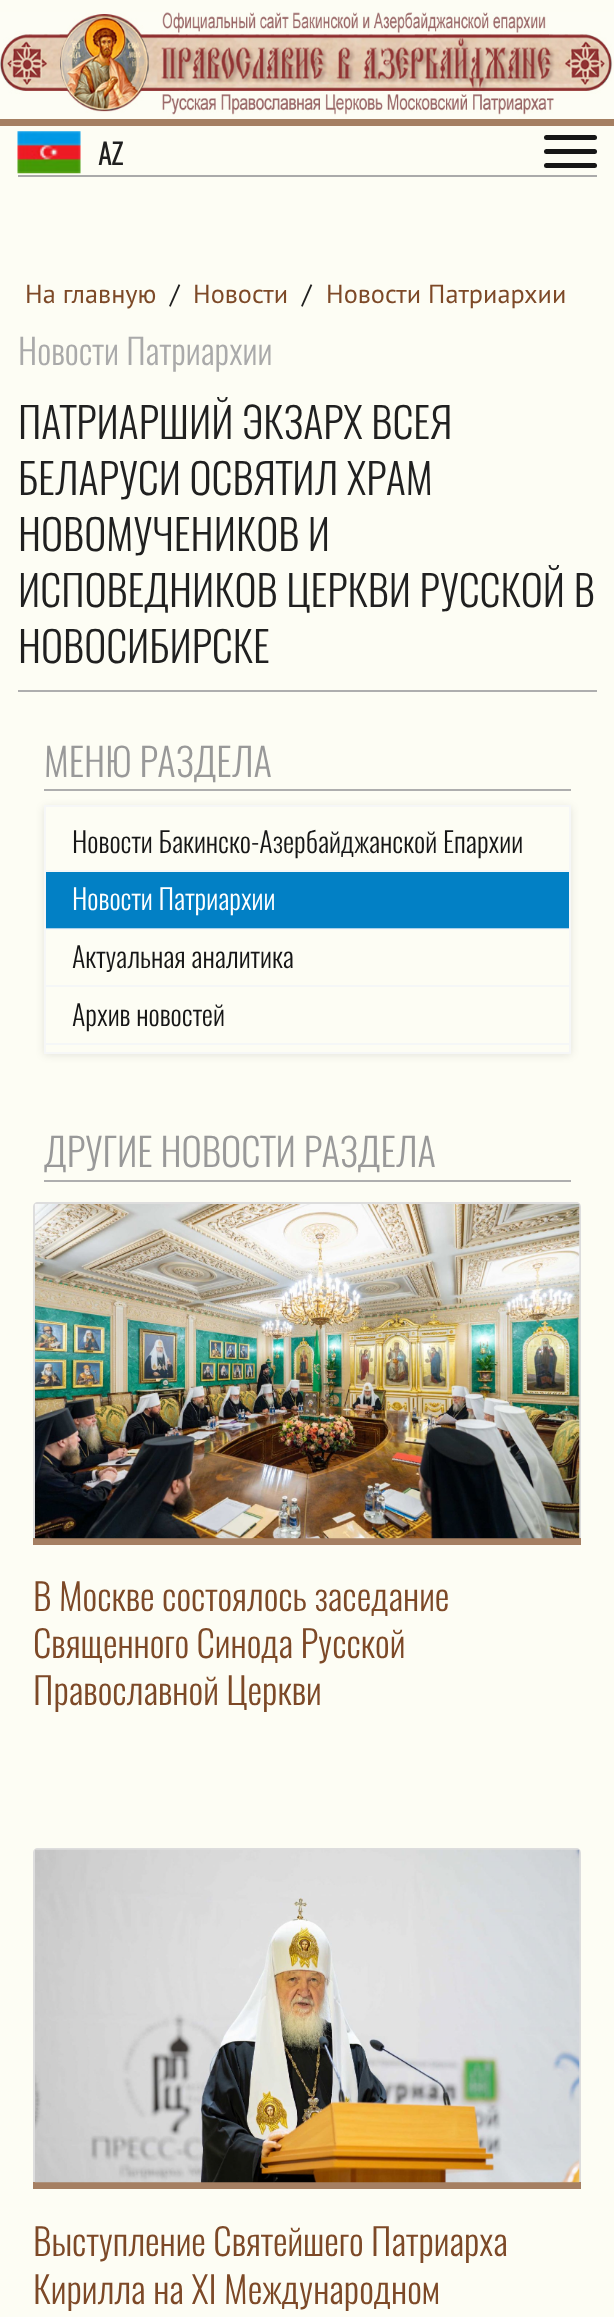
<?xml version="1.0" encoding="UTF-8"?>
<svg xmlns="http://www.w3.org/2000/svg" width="614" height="2317">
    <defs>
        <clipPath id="clip1"><path d="M 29 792 H 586 V 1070 H 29 Z M 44 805 H 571 V 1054 H 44 Z" clip-rule="evenodd"/></clipPath>
        <filter id="blur1" x="-50%" y="-200%" width="200%" height="500%"><feGaussianBlur stdDeviation="4.5"/></filter>
    </defs>
    <rect width="100%" height="100%" fill="#FDFDF4"/>
    <rect x="46" y="929" width="523" height="1" fill="#F5F7F7"/>
    <rect x="0" y="119" width="614" height="7" fill="#A57F62"/>
    <image x="0" y="12" width="614" height="107" href="img_01.png"/>
    <rect x="18" y="175" width="579" height="2" fill="#AAAAAA"/>
    <image x="17" y="131" width="64" height="43" href="img_02.png"/>
    <text x="98" y="165" font-family="Oswald" font-size="28" font-weight="700" fill="#202020">AZ</text>
    <rect x="544" y="135" width="53" height="5" rx="2.5" fill="#161616"/>
    <rect x="544" y="149" width="53" height="5" rx="2.5" fill="#161616"/>
    <rect x="544" y="163" width="53" height="5" rx="2.5" fill="#161616"/>
    <text x="25" y="303" font-family="PT Sans" font-size="26.25" fill="#7D4927">На главную</text>
    <text x="170" y="303" font-family="PT Sans" font-size="26.25" fill="#202020">/</text>
    <text x="193" y="303" font-family="PT Sans" font-size="26.25" fill="#7D4927">Новости</text>
    <text x="302" y="303" font-family="PT Sans" font-size="26.25" fill="#202020">/</text>
    <text x="326" y="303" font-family="PT Sans" font-size="26.25" fill="#7D4927">Новости Патриархии</text>
    <text x="18" y="365" font-family="Oswald" font-size="35" font-weight="300" fill="#AAAAAA">Новости Патриархии</text>
    <rect x="18" y="690" width="579" height="2" fill="#AEAEAE"/>
    <text font-family="Oswald" font-size="42" font-weight="300" fill="#202020">
        <tspan x="18" y="439">ПАТРИАРШИЙ ЭКЗАРХ ВСЕЯ</tspan>
        <tspan x="18" y="495">БЕЛАРУСИ ОСВЯТИЛ ХРАМ</tspan>
        <tspan x="18" y="551">НОВОМУЧЕНИКОВ И</tspan>
        <tspan x="18" y="607">ИСПОВЕДНИКОВ ЦЕРКВИ РУССКОЙ В</tspan>
        <tspan x="18" y="663">НОВОСИБИРСКЕ</tspan>
    </text>
    <rect x="44" y="789" width="527" height="2" fill="#AEAEAE"/>
    <text x="44" y="777" font-family="Oswald" font-size="38.5" font-weight="300" fill="#999999">МЕНЮ РАЗДЕЛА</text>
    <g clip-path="url(#clip1)">
        <rect x="44" y="807" width="527" height="248" fill="#000000" fill-opacity="0.1" filter="url(#blur1)"/>
    </g>
    <rect x="45" y="806" width="525" height="247" fill="none" stroke="#F2F4F8" stroke-opacity="0.7" stroke-width="2"/>
    <rect x="46" y="870" width="523" height="2" fill="#F5F7F7"/>
    <text x="72" y="853" font-family="Oswald" font-size="28" font-weight="300" fill="#161616">Новости Бакинско-Азербайджанской Епархии</text>
    <rect x="46" y="872" width="523" height="56" fill="#0280C5"/>
    <rect x="46" y="928" width="523" height="1" fill="#AAD1E9"/>
    <text x="72" y="910" font-family="Oswald" font-size="28" font-weight="300" fill="#FFFFFF">Новости Патриархии</text>
    <rect x="46" y="985" width="523" height="2" fill="#F5F7F7"/>
    <text x="72" y="968" font-family="Oswald" font-size="28" font-weight="300" fill="#161616">Актуальная аналитика</text>
    <rect x="46" y="1043" width="523" height="2" fill="#F5F7F7"/>
    <text x="72" y="1026" font-family="Oswald" font-size="28" font-weight="300" fill="#161616">Архив новостей</text>
    <rect x="44" y="1180" width="527" height="2" fill="#AEAEAE"/>
    <text x="44" y="1167" font-family="Oswald" font-size="38.5" font-weight="300" fill="#999999">ДРУГИЕ НОВОСТИ РАЗДЕЛА</text>
    <rect x="33" y="1538" width="548" height="7" fill="#A57F62"/>
    <path d="M 35 1204 H 579 V 1538 H 581 V 1207 C 581 1204 579 1202 576 1202 H 38 C 35 1202 33 1204 33 1207 V 1538 H 35 Z" fill="#DDDDDD"/>
    <image x="35" y="1204" width="545" height="335" href="img_03.png"/>
    <text font-family="Oswald" font-size="36.75" font-weight="300" fill="#7D4927">
        <tspan x="33" y="1611">В Москве состоялось заседание</tspan>
        <tspan x="33" y="1658">Священного Синода Русской</tspan>
        <tspan x="33" y="1705">Православной Церкви</tspan>
    </text>
    <rect x="33" y="2182" width="548" height="7" fill="#A57F62"/>
    <path d="M 35 1850 H 579 V 2182 H 581 V 1853 C 581 1850 579 1848 576 1848 H 38 C 35 1848 33 1850 33 1853 V 2182 H 35 Z" fill="#DDDDDD"/>
    <image x="35" y="1849" width="545" height="334" href="img_04.png"/>
    <text font-family="Oswald" font-size="36.75" font-weight="300" fill="#7D4927">
        <tspan x="33" y="2256">Выступление Святейшего Патриарха</tspan>
        <tspan x="33" y="2304">Кирилла на XI Международном</tspan>
    </text>
</svg>
